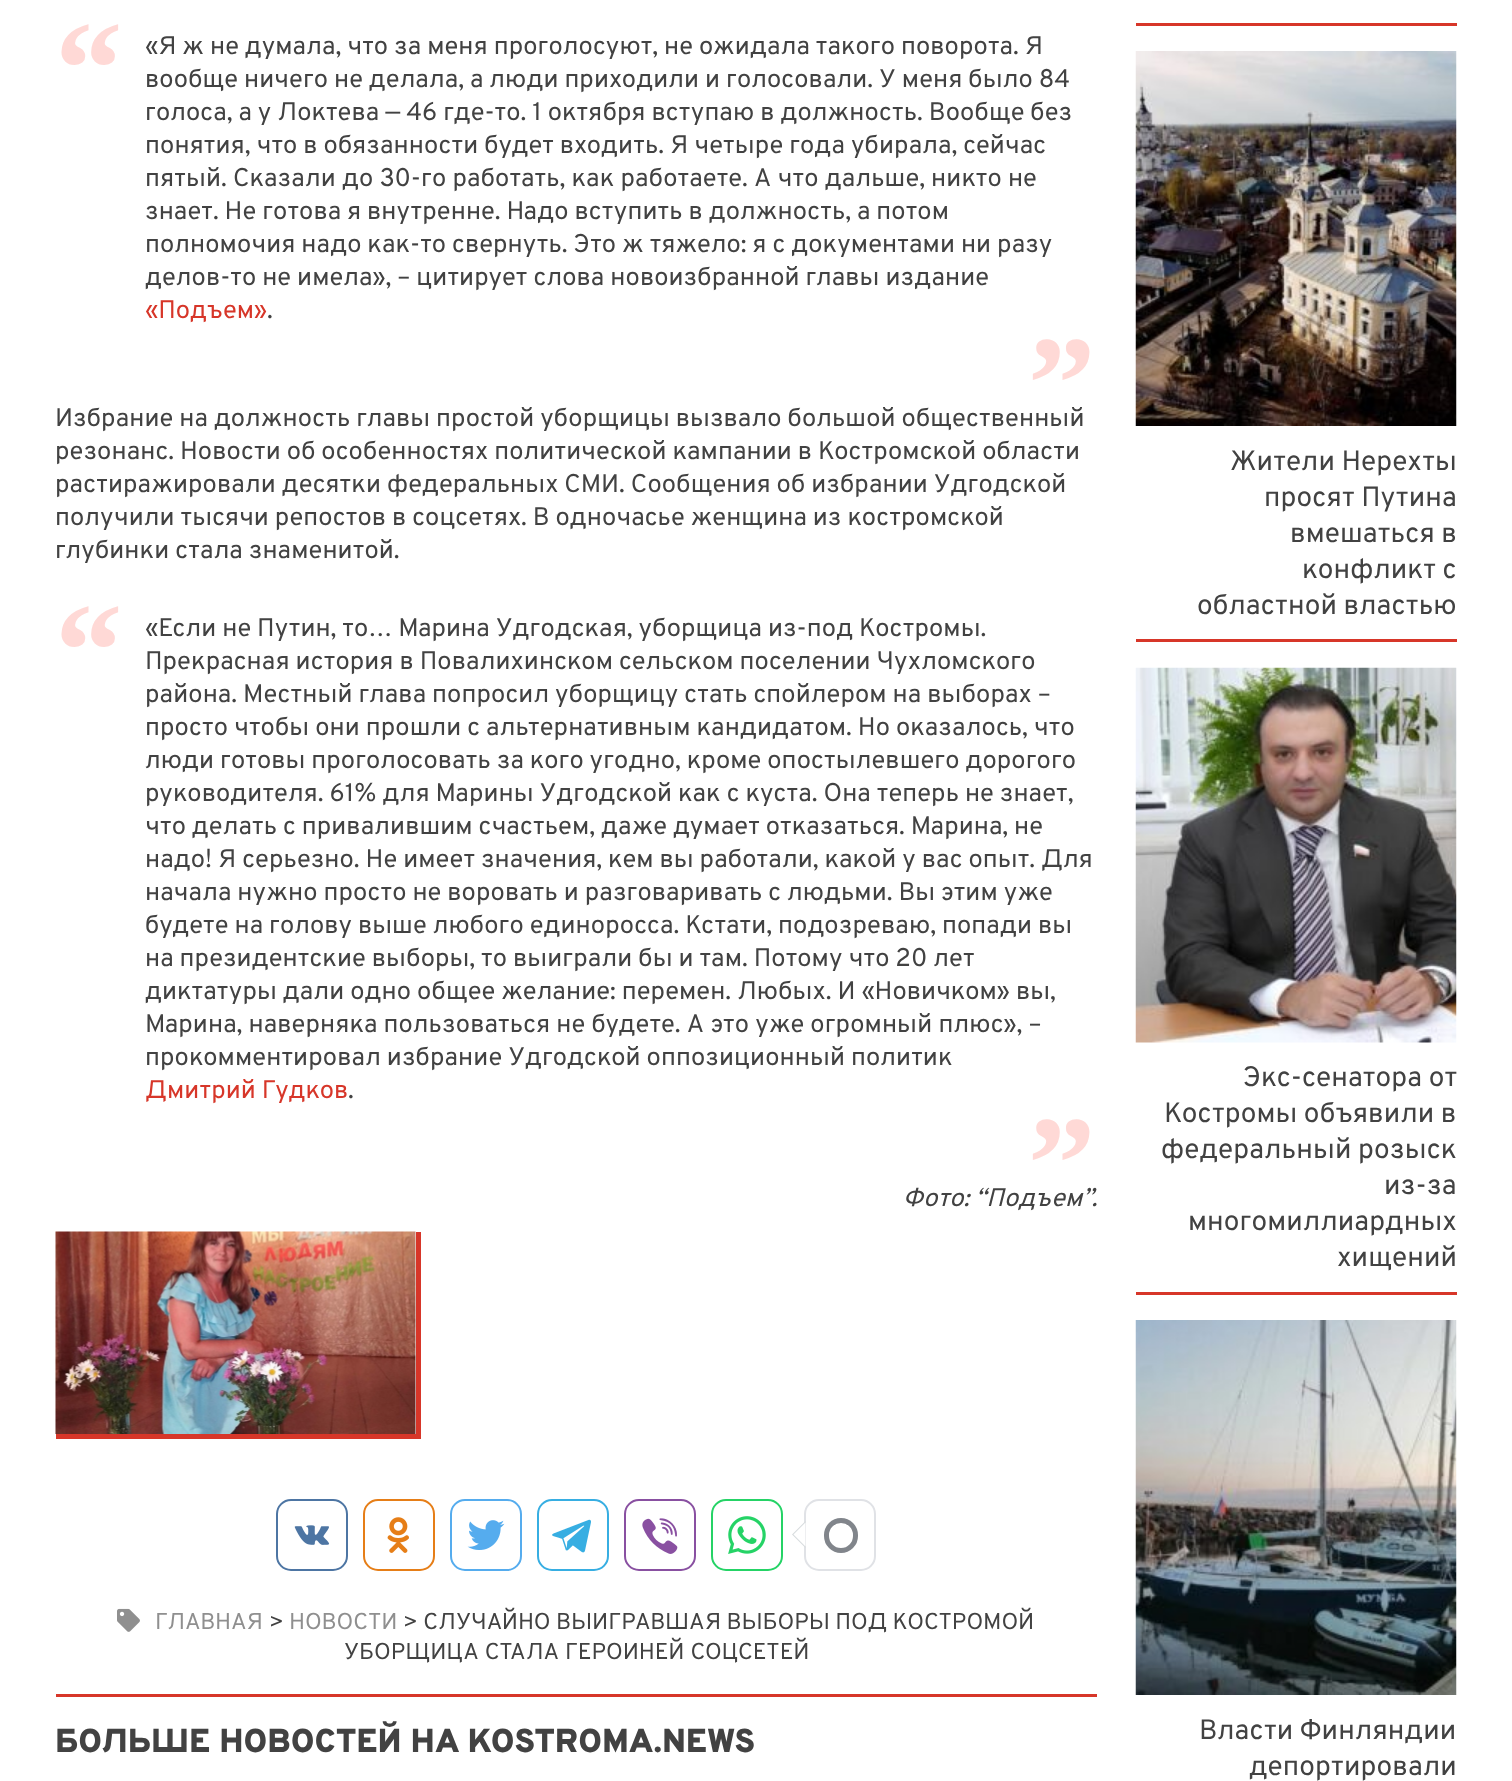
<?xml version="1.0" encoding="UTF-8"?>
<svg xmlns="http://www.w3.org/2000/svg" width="1512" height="1781">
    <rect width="100%" height="100%" fill="#FFFFFF"/>
    <text x="55" y="114" font-family="Liberation Serif" font-size="135" font-weight="700" fill="#FFD9D6">“</text>
    <text font-family="Overpass" font-size="25.5" fill="#424242">
        <tspan x="145" y="54">«Я ж не думала, что за меня проголосуют, не ожидала такого поворота. Я</tspan>
        <tspan x="145" y="87">вообще ничего не делала, а люди приходили и голосовали. У меня было 84</tspan>
        <tspan x="145" y="120">голоса, а у Локтева — 46 где-то. 1 октября вступаю в должность. Вообще без</tspan>
        <tspan x="145" y="153">понятия, что в обязанности будет входить. Я четыре года убирала, сейчас</tspan>
        <tspan x="145" y="186" word-spacing="0.25">пятый. Сказали до 30-го работать, как работаете. А что дальше, никто не</tspan>
        <tspan x="145" y="219">знает. Не готова я внутренне. Надо вступить в должность, а потом</tspan>
        <tspan x="145" y="252">полномочия надо как-то свернуть. Это ж тяжело: я с документами ни разу</tspan>
        <tspan x="145" y="285">делов-то не имела», – цитирует слова новоизбранной главы издание</tspan>
    </text>
    <text x="145" y="318" font-family="Overpass" font-size="25.5" fill="#D73629">«Подъем»</text>
    <text x="267" y="318" font-family="Overpass" font-size="25.5" fill="#424242">.</text>
    <text x="1029" y="359" font-family="Liberation Serif" font-size="135" font-weight="700" fill="#FFD9D6">„</text>
    <text font-family="Overpass" font-size="25.5" fill="#424242">
        <tspan x="55" y="426">Избрание на должность главы простой уборщицы вызвало большой общественный</tspan>
        <tspan x="55" y="459">резонанс. Новости об особенностях политической кампании в Костромской области</tspan>
        <tspan x="55" y="492">растиражировали десятки федеральных СМИ. Сообщения об избрании Удгодской</tspan>
        <tspan x="55" y="525">получили тысячи репостов в соцсетях. В одночасье женщина из костромской</tspan>
        <tspan x="55" y="558">глубинки стала знаменитой.</tspan>
    </text>
    <text x="55" y="696" font-family="Liberation Serif" font-size="135" font-weight="700" fill="#FFD9D6">“</text>
    <text font-family="Overpass" font-size="25.5" fill="#424242">
        <tspan x="145" y="636">«Если не Путин, то… Марина Удгодская, уборщица из-под Костромы.</tspan>
        <tspan x="145" y="669">Прекрасная история в Повалихинском сельском поселении Чухломского</tspan>
        <tspan x="145" y="702">района. Местный глава попросил уборщицу стать спойлером на выборах –</tspan>
        <tspan x="145" y="735">просто чтобы они прошли с альтернативным кандидатом. Но оказалось, что</tspan>
        <tspan x="145" y="768">люди готовы проголосовать за кого угодно, кроме опостылевшего дорогого</tspan>
        <tspan x="145" y="801">руководителя. 61% для Марины Удгодской как с куста. Она теперь не знает,</tspan>
        <tspan x="145" y="834">что делать с привалившим счастьем, даже думает отказаться. Марина, не</tspan>
        <tspan x="145" y="867">надо! Я серьезно. Не имеет значения, кем вы работали, какой у вас опыт. Для</tspan>
        <tspan x="145" y="900">начала нужно просто не воровать и разговаривать с людьми. Вы этим уже</tspan>
        <tspan x="145" y="933">будете на голову выше любого единоросса. Кстати, подозреваю, попади вы</tspan>
        <tspan x="145" y="966">на президентские выборы, то выиграли бы и там. Потому что 20 лет</tspan>
        <tspan x="145" y="999">диктатуры дали одно общее желание: перемен. Любых. И «Новичком» вы,</tspan>
        <tspan x="145" y="1032" word-spacing="0.25">Марина, наверняка пользоваться не будете. А это уже огромный плюс», –</tspan>
        <tspan x="145" y="1065">прокомментировал избрание Удгодской оппозиционный политик</tspan>
    </text>
    <text x="145" y="1098" font-family="Overpass" font-size="25.5" fill="#D73629">Дмитрий Гудков</text>
    <text x="348" y="1098" font-family="Overpass" font-size="25.5" fill="#424242">.</text>
    <text x="1029" y="1139" font-family="Liberation Serif" font-size="135" font-weight="700" fill="#FFD9D6">„</text>
    <text x="903" y="1206" font-family="Overpass" font-size="25.5" font-style="italic" fill="#424242">Фото: “Подъем”.</text>
    <rect x="416" y="1232" width="5" height="207" fill="#D73629"/>
    <rect x="56" y="1434" width="364" height="5" fill="#D73629"/>
    <image x="55" y="1231" width="361" height="203" href="img_01.png"/>
    <rect x="277" y="1500" width="70" height="70" rx="14" fill="none" stroke="#4D75A3" stroke-width="2"/>
    <image x="294" y="1525" width="36" height="20" href="img_02.png"/>
    <rect x="364" y="1500" width="70" height="70" rx="14" fill="none" stroke="#E67E17" stroke-width="2"/>
    <image x="387" y="1517" width="22" height="36" href="img_03.png"/>
    <rect x="451" y="1500" width="70" height="70" rx="14" fill="none" stroke="#55ACEE" stroke-width="2"/>
    <image x="467" y="1520" width="38" height="30" href="img_04.png"/>
    <rect x="538" y="1500" width="70" height="70" rx="14" fill="none" stroke="#37AEE2" stroke-width="2"/>
    <image x="552" y="1519" width="39" height="34" href="img_05.png"/>
    <rect x="625" y="1500" width="70" height="70" rx="14" fill="none" stroke="#8950A1" stroke-width="2"/>
    <image x="642" y="1518" width="36" height="36" href="img_06.png"/>
    <rect x="712" y="1500" width="70" height="70" rx="14" fill="none" stroke="#25D366" stroke-width="2"/>
    <image x="728" y="1516" width="38" height="38" href="img_07.png"/>
    <rect x="805" y="1500" width="70" height="70" rx="14" fill="none" stroke="#E0E2E6" stroke-width="2"/>
    <path d="M 805.5 1521 V 1548 L 792 1534.5 Z" fill="#D8DCDE"/>
    <rect x="826.5" y="1520.5" width="29" height="30" rx="14.5" fill="none" stroke="#81858B" stroke-width="5"/>
    <path d="M 805.5 1522.5 V 1546.5 L 793.5 1534.5 Z" fill="#FFFFFF"/>
    <image x="117" y="1608" width="23" height="24" href="img_08.png"/>
    <text x="155" y="1629" font-family="Overpass" font-size="22.95" fill="#8F8F8F">ГЛАВНАЯ</text>
    <text x="269" y="1629" font-family="Overpass" font-size="22.95" fill="#424242">&gt;</text>
    <text x="289" y="1629" font-family="Overpass" font-size="22.95" fill="#8F8F8F">НОВОСТИ</text>
    <text x="403" y="1629" font-family="Overpass" font-size="22.95" fill="#424242">&gt; СЛУЧАЙНО ВЫИГРАВШАЯ ВЫБОРЫ ПОД КОСТРОМОЙ</text>
    <text x="344" y="1659" word-spacing="0.5" font-family="Overpass" font-size="22.95" fill="#424242">УБОРЩИЦА СТАЛА ГЕРОИНЕЙ СОЦСЕТЕЙ</text>
    <rect x="56" y="1694" width="1041" height="3" fill="#D73629"/>
    <text x="55" y="1752" word-spacing="0.5" font-family="Overpass" font-size="33.15" font-weight="900" fill="#424242">БОЛЬШЕ НОВОСТЕЙ НА KOSTROMA.NEWS</text>
    <rect x="1136" y="23" width="321" height="3" fill="#D73629"/>
    <image x="1135" y="51" width="322" height="375" href="img_09.png"/>
    <rect x="1136" y="639" width="321" height="3" fill="#D73629"/>
    <text x="1230" y="470" font-family="Overpass" font-size="28" fill="#424242">Жители Нерехты</text>
    <text x="1264" y="506" font-family="Overpass" font-size="28" fill="#424242">просят Путина</text>
    <text x="1290" y="542" font-family="Overpass" font-size="28" fill="#424242">вмешаться в</text>
    <text x="1302" y="578" font-family="Overpass" font-size="28" fill="#424242">конфликт с</text>
    <text x="1197" y="614" font-family="Overpass" font-size="28" fill="#424242">областной властью</text>
    <image x="1135" y="667" width="322" height="376" href="img_10.png"/>
    <rect x="1136" y="1292" width="321" height="3" fill="#D73629"/>
    <text x="1243" y="1086" font-family="Overpass" font-size="28" fill="#424242">Экс-сенатора от</text>
    <text x="1164" y="1122" font-family="Overpass" font-size="28" fill="#424242">Костромы объявили в</text>
    <text x="1161" y="1158" font-family="Overpass" font-size="28" fill="#424242">федеральный розыск</text>
    <text x="1384" y="1194" font-family="Overpass" font-size="28" fill="#424242">из-за</text>
    <text x="1188" y="1230" font-family="Overpass" font-size="28" fill="#424242">многомиллиардных</text>
    <text x="1337" y="1266" font-family="Overpass" font-size="28" fill="#424242">хищений</text>
    <image x="1135" y="1320" width="322" height="375" href="img_11.png"/>
    <text x="1199" y="1739" font-family="Overpass" font-size="28" fill="#424242">Власти Финляндии</text>
    <text x="1249" y="1775" font-family="Overpass" font-size="28" fill="#424242">депортировали</text>
</svg>
